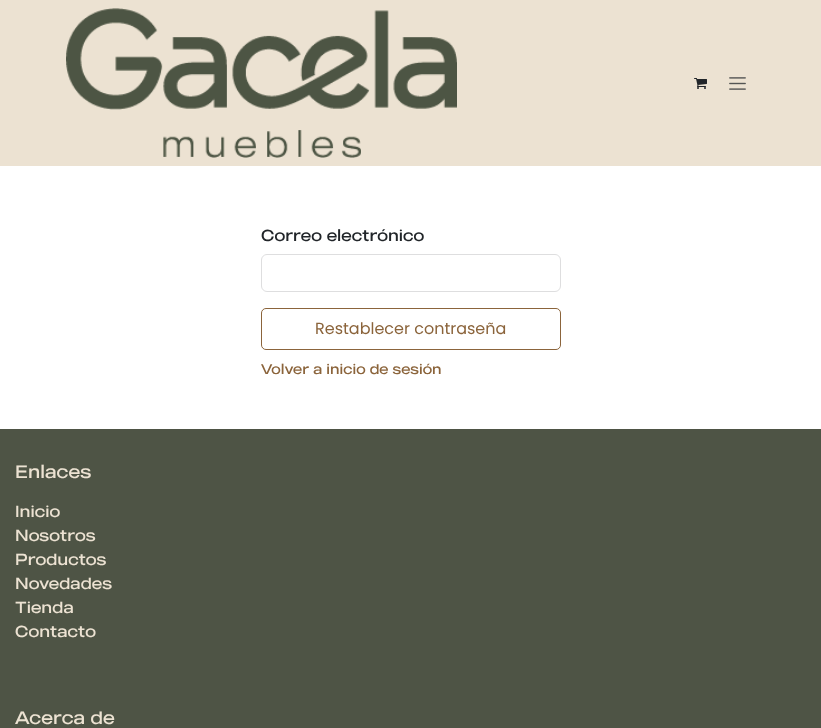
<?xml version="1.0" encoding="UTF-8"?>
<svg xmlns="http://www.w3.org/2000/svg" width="821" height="728">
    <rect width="100%" height="100%" fill="#FFFFFF"/>
    <rect x="0" y="0" width="821" height="166" fill="#ECE2D2"/>
    <image x="66" y="8" width="391" height="150" href="img_01.png"/>
    <image x="694" y="78" width="13" height="11" href="img_02.png"/>
    <image x="729" y="77" width="17" height="13" href="img_03.png"/>
    <text x="261" y="241" font-family="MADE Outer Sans" font-size="16" font-weight="300" fill="#212529">Correo electrónico</text>
    <rect x="261.5" y="254.5" width="299" height="37" rx="5.5" fill="none" stroke="#DEDEDF"/>
    <rect x="261.5" y="308.5" width="299" height="41" rx="4.5" fill="none" stroke="#8B643B"/>
    <text x="315" y="334" font-family="Poppins" font-size="16" fill="#8B643B">Restablecer contraseña</text>
    <text x="261" y="374" font-family="MADE Outer Sans" font-size="14" font-weight="300" fill="#8B643B">Volver a inicio de sesión</text>
    <rect x="0" y="429" width="821" height="299" fill="#4E5445"/>
    <text x="15" y="478" font-family="MADE Outer Sans" font-size="18" font-weight="300" fill="#ECE2D2">Enlaces</text>
    <text font-family="MADE Outer Sans" font-size="16" font-weight="300" fill="#ECE2D2">
        <tspan x="15" y="517">Inicio</tspan>
        <tspan x="15" y="541">Nosotros</tspan>
        <tspan x="15" y="565">Productos</tspan>
        <tspan x="15" y="589">Novedades</tspan>
        <tspan x="15" y="613">Tienda</tspan>
        <tspan x="15" y="637">Contacto</tspan>
    </text>
    <text x="15" y="724" font-family="MADE Outer Sans" font-size="18" font-weight="300" fill="#ECE2D2">Acerca de</text>
</svg>
